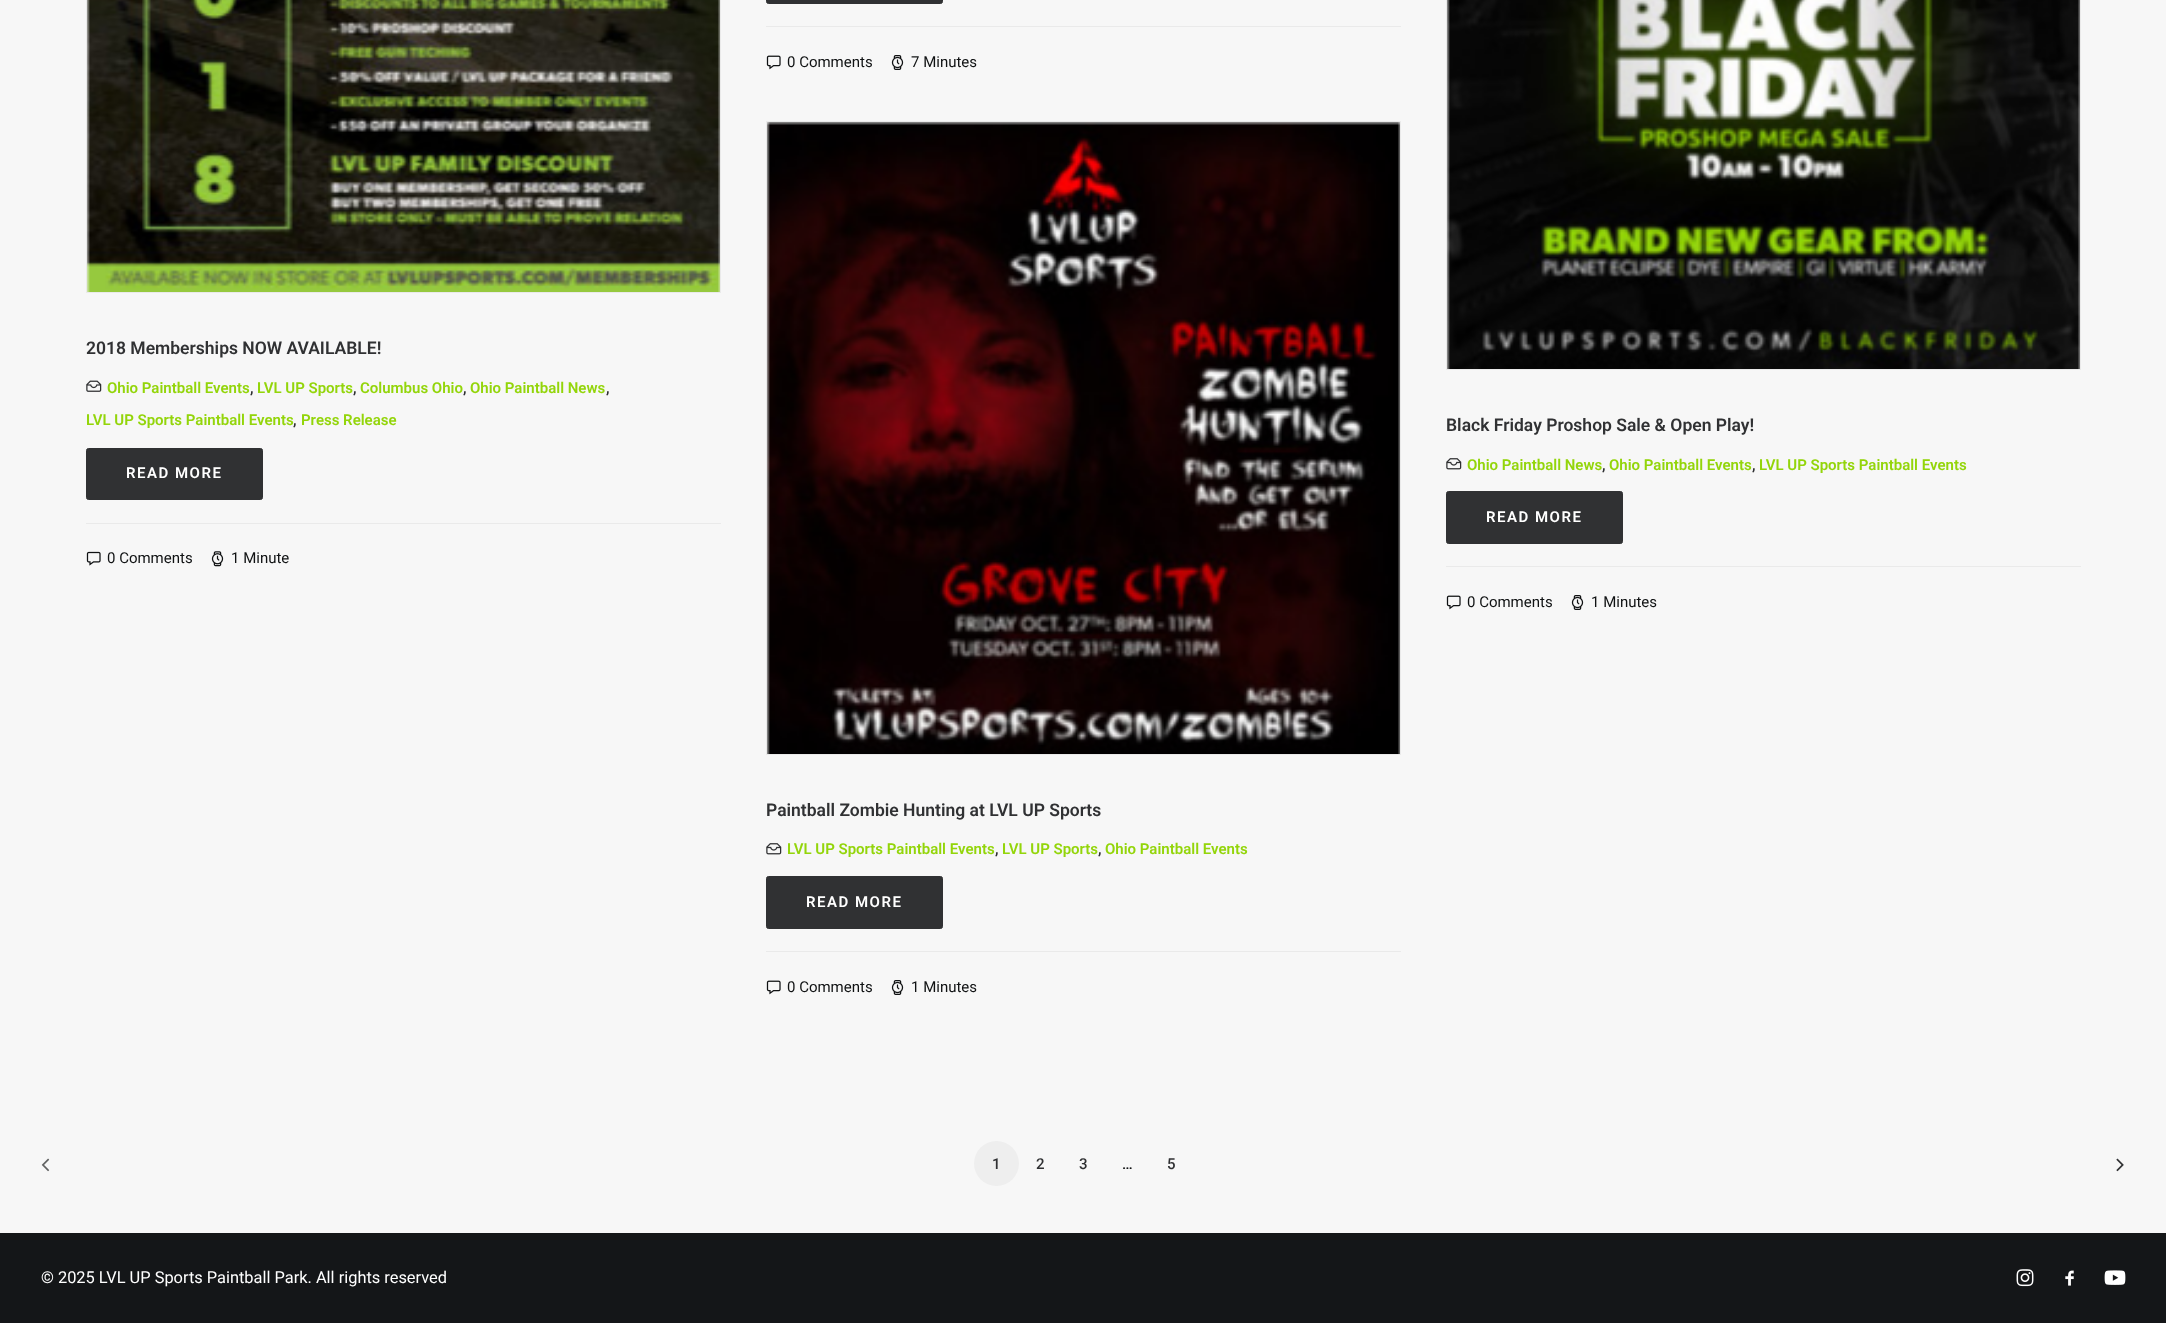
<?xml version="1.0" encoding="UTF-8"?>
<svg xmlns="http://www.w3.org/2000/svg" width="2166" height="1323">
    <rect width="100%" height="100%" fill="#F7F7F7"/>
    <rect x="766.5" y="-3.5" width="176" height="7" rx="2" fill="#303133" stroke="#303133"/>
    <rect x="766" y="26" width="635" height="1" fill="#EAEAEA"/>
    <image x="766" y="55" width="15" height="15" href="img_01.png"/>
    <text x="787" y="67" font-family="Roboto" font-size="15" fill="#101213">0 Comments</text>
    <image x="891" y="55" width="13" height="15" href="img_02.png"/>
    <text x="911" y="67" font-family="Roboto" font-size="15" fill="#101213">7 Minutes</text>
    <rect x="86.5" y="-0.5" width="634" height="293" fill="none" stroke="#EAEAEA"/>
    <image x="87" y="0" width="633" height="292" href="img_03.png"/>
    <text x="86" y="354" font-family="Roboto" font-size="17.5" font-weight="600" fill="#303133">2018 Memberships NOW AVAILABLE!</text>
    <image x="86" y="380" width="16" height="12" href="img_04.png"/>
    <text x="107" y="393" font-family="Roboto" font-size="15" font-weight="600" fill="#93D50A">Ohio Paintball Events</text>
    <text x="250" y="393" font-family="Roboto" font-size="15" font-weight="600" fill="#303133">,</text>
    <text x="257" y="393" font-family="Roboto" font-size="15" font-weight="600" fill="#93D50A">LVL UP Sports</text>
    <text x="353" y="393" font-family="Roboto" font-size="15" font-weight="600" fill="#303133">,</text>
    <text x="360" y="393" font-family="Roboto" font-size="15" font-weight="600" fill="#93D50A">Columbus Ohio</text>
    <text x="463" y="393" font-family="Roboto" font-size="15" font-weight="600" fill="#303133">,</text>
    <text x="470" y="393" font-family="Roboto" font-size="15" font-weight="600" fill="#93D50A">Ohio Paintball News</text>
    <text x="606" y="393" font-family="Roboto" font-size="15" font-weight="600" fill="#303133">,</text>
    <text x="86" y="425" font-family="Roboto" font-size="15" font-weight="600" fill="#93D50A">LVL UP Sports Paintball Events</text>
    <text x="293" y="425" font-family="Roboto" font-size="15" font-weight="600" fill="#303133">,</text>
    <text x="301" y="425" font-family="Roboto" font-size="15" font-weight="600" fill="#93D50A">Press Release</text>
    <rect x="86.5" y="448.5" width="176" height="51" rx="2" fill="#303133" stroke="#303133"/>
    <text x="126" y="478" font-family="Roboto" font-size="15" font-weight="600" letter-spacing="1.5" fill="#FFFFFF">READ MORE</text>
    <rect x="86" y="523" width="635" height="1" fill="#EAEAEA"/>
    <image x="86" y="551" width="15" height="15" href="img_05.png"/>
    <text x="107" y="563" font-family="Roboto" font-size="15" fill="#101213">0 Comments</text>
    <image x="211" y="551" width="13" height="16" href="img_06.png"/>
    <text x="231" y="563" font-family="Roboto" font-size="15" fill="#101213">1 Minute</text>
    <rect x="1446.5" y="-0.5" width="634" height="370" fill="none" stroke="#EAEAEA"/>
    <image x="1447" y="0" width="633" height="369" href="img_07.png"/>
    <text x="1446" y="431" font-family="Roboto" font-size="17.5" font-weight="600" fill="#303133">Black Friday Proshop Sale &amp; Open Play!</text>
    <image x="1446" y="458" width="16" height="12" href="img_08.png"/>
    <text x="1467" y="470" font-family="Roboto" font-size="15" font-weight="600" fill="#93D50A">Ohio Paintball News</text>
    <text x="1602" y="470" font-family="Roboto" font-size="15" font-weight="600" fill="#303133">,</text>
    <text x="1609" y="470" font-family="Roboto" font-size="15" font-weight="600" fill="#93D50A">Ohio Paintball Events</text>
    <text x="1752" y="470" font-family="Roboto" font-size="15" font-weight="600" fill="#303133">,</text>
    <text x="1759" y="470" font-family="Roboto" font-size="15" font-weight="600" fill="#93D50A">LVL UP Sports Paintball Events</text>
    <rect x="1446.5" y="491.5" width="176" height="52" rx="2" fill="#303133" stroke="#303133"/>
    <text x="1486" y="522" font-family="Roboto" font-size="15" font-weight="600" letter-spacing="1.5" fill="#FFFFFF">READ MORE</text>
    <rect x="1446" y="566" width="635" height="1" fill="#EAEAEA"/>
    <image x="1446" y="595" width="15" height="15" href="img_01.png"/>
    <text x="1467" y="607" font-family="Roboto" font-size="15" fill="#101213">0 Comments</text>
    <image x="1571" y="595" width="13" height="15" href="img_02.png"/>
    <text x="1591" y="607" font-family="Roboto" font-size="15" fill="#101213">1 Minutes</text>
    <rect x="766.5" y="121.5" width="634" height="633" fill="none" stroke="#EAEAEA"/>
    <image x="767" y="122" width="633" height="632" href="img_09.png"/>
    <text x="766" y="816" font-family="Roboto" font-size="17.5" font-weight="600" fill="#303133">Paintball Zombie Hunting at LVL UP Sports</text>
    <image x="766" y="843" width="16" height="12" href="img_08.png"/>
    <text x="787" y="854" font-family="Roboto" font-size="15" font-weight="600" fill="#93D50A">LVL UP Sports Paintball Events</text>
    <text x="995" y="854" font-family="Roboto" font-size="15" font-weight="600" fill="#303133">,</text>
    <text x="1002" y="854" font-family="Roboto" font-size="15" font-weight="600" fill="#93D50A">LVL UP Sports</text>
    <text x="1098" y="854" font-family="Roboto" font-size="15" font-weight="600" fill="#303133">,</text>
    <text x="1105" y="854" font-family="Roboto" font-size="15" font-weight="600" fill="#93D50A">Ohio Paintball Events</text>
    <rect x="766.5" y="876.5" width="176" height="52" rx="2" fill="#303133" stroke="#303133"/>
    <text x="806" y="907" font-family="Roboto" font-size="15" font-weight="600" letter-spacing="1.5" fill="#FFFFFF">READ MORE</text>
    <rect x="766" y="951" width="635" height="1" fill="#EAEAEA"/>
    <image x="766" y="980" width="15" height="15" href="img_01.png"/>
    <text x="787" y="992" font-family="Roboto" font-size="15" fill="#101213">0 Comments</text>
    <image x="891" y="980" width="13" height="15" href="img_02.png"/>
    <text x="911" y="992" font-family="Roboto" font-size="15" fill="#101213">1 Minutes</text>
    <image x="41" y="1158" width="9" height="14" href="img_10.png"/>
    <circle cx="996.5" cy="1163.5" r="22.5" fill="#EEEEEE"/>
    <text x="992" y="1169" font-family="Roboto" font-size="15" font-weight="500" fill="#303133">1</text>
    <text x="1036" y="1169" font-family="Roboto" font-size="15" font-weight="500" fill="#303133">2</text>
    <text x="1079" y="1169" font-family="Roboto" font-size="15" font-weight="500" fill="#303133">3</text>
    <text x="1122" y="1169" font-family="Roboto" font-size="15" font-weight="500" fill="#101213">…</text>
    <text x="1167" y="1169" font-family="Roboto" font-size="15" font-weight="500" fill="#303133">5</text>
    <image x="2116" y="1158" width="8" height="14" href="img_11.png"/>
    <rect x="0" y="1233" width="2166" height="90" fill="#141618"/>
    <text x="41" y="1283" font-family="Roboto" font-size="16.4" fill="#FFFFFF">© 2025 LVL UP Sports Paintball Park. All rights reserved</text>
    <image x="2016" y="1269" width="18" height="18" href="img_12.png"/>
    <image x="2065" y="1270" width="9" height="16" href="img_13.png"/>
    <image x="2104" y="1270" width="22" height="15" href="img_14.png"/>
</svg>
